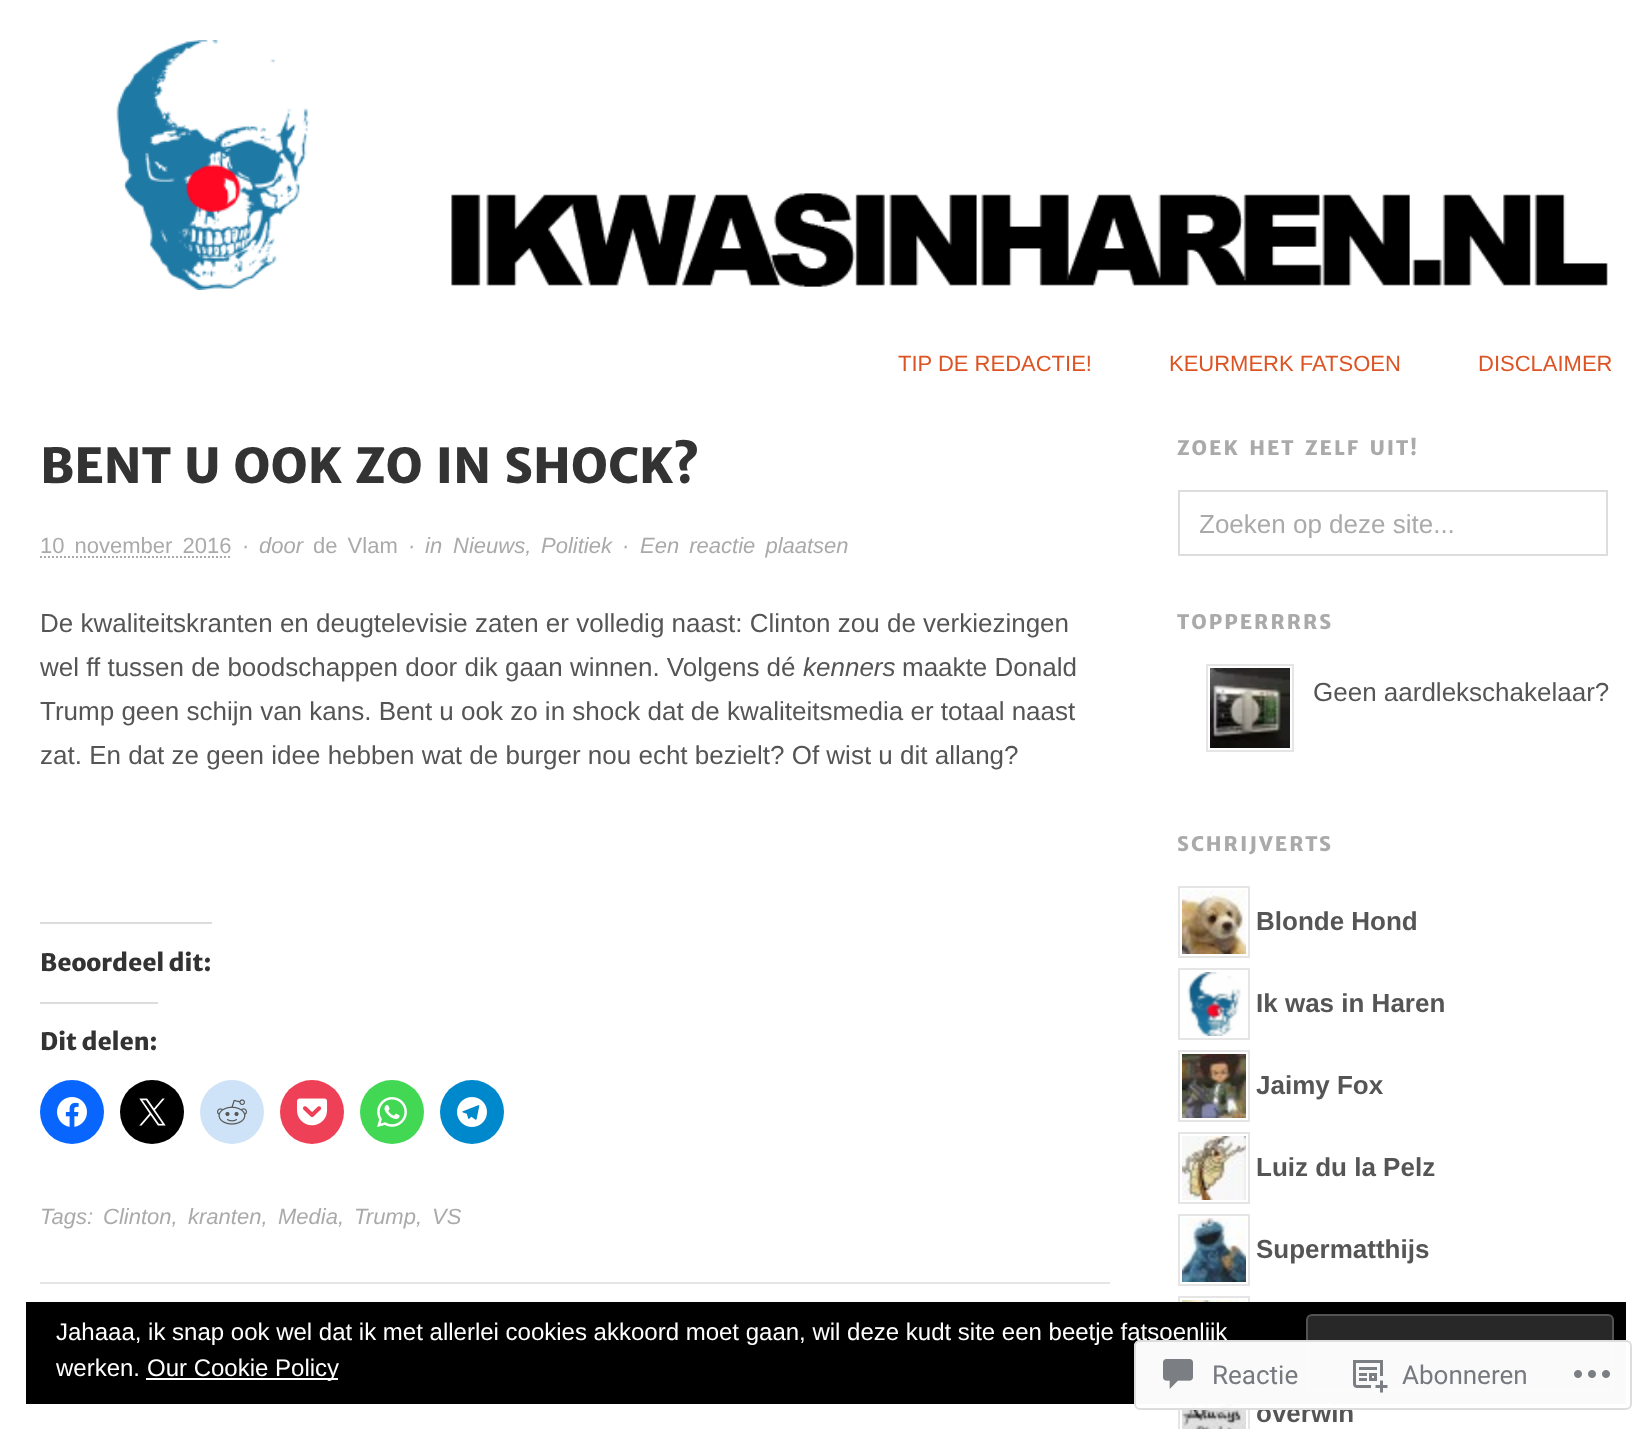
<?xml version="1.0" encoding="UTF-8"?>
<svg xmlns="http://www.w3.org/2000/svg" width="1651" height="1429">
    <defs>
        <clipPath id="clip1"><rect x="1200" y="508" width="386" height="30"/></clipPath>
    </defs>
    <rect width="100%" height="100%" fill="#FFFFFF"/>
    <image x="116" y="40" width="1492" height="250" href="img_01.png"/>
    <text x="898" y="371" font-family="Arimo" font-size="22" fill="#DD5424">TIP DE REDACTIE!</text>
    <text x="1169" y="371" font-family="Arimo" font-size="22" fill="#DD5424">KEURMERK FATSOEN</text>
    <text x="1478" y="371" font-family="Arimo" font-size="22" fill="#DD5424">DISCLAIMER</text>
    <rect x="40" y="1282" width="1070" height="2" fill="#E5E5E5"/>
    <text x="40" y="483" word-spacing="4.75" font-family="Merriweather Sans" font-size="48" font-weight="800" fill="#333333">BENT U OOK ZO IN SHOCK?</text>
    <text x="40" y="553" word-spacing="4" font-family="Arimo" font-size="22" fill="#AAAAAA">10 november 2016</text>
    <path d="M 40 557 H 231.5" fill="none" stroke="#AAAAAA" stroke-width="2" stroke-dasharray="2 2"/>
    <text x="242" y="553" font-family="Arimo" font-size="22" font-style="italic" fill="#AAAAAA">·</text>
    <text x="259" y="553" font-family="Arimo" font-size="22" font-style="italic" fill="#AAAAAA">door</text>
    <text x="313" y="553" word-spacing="4" font-family="Arimo" font-size="22" fill="#AAAAAA">de Vlam</text>
    <text x="408" y="553" font-family="Arimo" font-size="22" font-style="italic" fill="#AAAAAA">·</text>
    <text x="425" y="553" font-family="Arimo" font-size="22" font-style="italic" fill="#AAAAAA">in</text>
    <text x="453" y="553" font-family="Arimo" font-size="22" font-style="italic" fill="#AAAAAA">Nieuws,</text>
    <text x="541" y="553" font-family="Arimo" font-size="22" font-style="italic" fill="#AAAAAA">Politiek</text>
    <text x="622" y="553" font-family="Arimo" font-size="22" font-style="italic" fill="#AAAAAA">·</text>
    <text x="640" y="553" word-spacing="4" font-family="Arimo" font-size="22" font-style="italic" fill="#AAAAAA">Een reactie plaatsen</text>
    <text font-family="Arimo" font-size="26" fill="#555555">
        <tspan x="40" y="632">De kwaliteitskranten en deugtelevisie zaten er volledig naast: Clinton zou de verkiezingen</tspan>
        <tspan x="40" y="676">wel ff tussen de boodschappen door dik gaan winnen. Volgens dé</tspan>
    </text>
    <text x="803" y="676" font-family="Arimo" font-size="26" font-style="italic" fill="#555555">kenners</text>
    <text x="902" y="676" font-family="Arimo" font-size="26" fill="#555555">maakte Donald</text>
    <text font-family="Arimo" font-size="26" fill="#555555">
        <tspan x="40" y="720">Trump geen schijn van kans. Bent u ook zo in shock dat de kwaliteitsmedia er totaal naast</tspan>
        <tspan x="40" y="764">zat. En dat ze geen idee hebben wat de burger nou echt bezielt? Of wist u dit allang?</tspan>
    </text>
    <rect x="40" y="922" width="172" height="2" fill="#DCDCDE"/>
    <text x="40" y="971" font-family="Merriweather Sans" font-size="24" font-weight="800" fill="#333333">Beoordeel dit:</text>
    <rect x="40" y="1002" width="118" height="2" fill="#DCDCDE"/>
    <text x="40" y="1050" font-family="Merriweather Sans" font-size="24" font-weight="800" fill="#333333">Dit delen:</text>
    <circle cx="72" cy="1112" r="32" fill="#0866FF"/>
    <image x="57" y="1097" width="30" height="30" href="img_02.png"/>
    <circle cx="152" cy="1112" r="32" fill="#000000"/>
    <image x="139" y="1098" width="27" height="28" href="img_03.png"/>
    <circle cx="232" cy="1112" r="32" fill="#CEE3F8"/>
    <image x="217" y="1099" width="30" height="26" href="img_04.png"/>
    <circle cx="312" cy="1112" r="32" fill="#EE4056"/>
    <image x="297" y="1098" width="31" height="28" href="img_05.png"/>
    <circle cx="392" cy="1112" r="32" fill="#43D854"/>
    <image x="377" y="1097" width="30" height="30" href="img_06.png"/>
    <circle cx="472" cy="1112" r="32" fill="#0088CC"/>
    <image x="457" y="1097" width="30" height="30" href="img_07.png"/>
    <text x="40" y="1224" font-family="Arimo" font-size="22" font-style="italic" fill="#AAAAAA">Tags:</text>
    <text x="103" y="1224" font-family="Arimo" font-size="22" font-style="italic" fill="#AAAAAA">Clinton,</text>
    <text x="188" y="1224" font-family="Arimo" font-size="22" font-style="italic" fill="#AAAAAA">kranten,</text>
    <text x="278" y="1224" font-family="Arimo" font-size="22" font-style="italic" fill="#AAAAAA">Media,</text>
    <text x="354" y="1224" font-family="Arimo" font-size="22" font-style="italic" fill="#AAAAAA">Trump,</text>
    <text x="432" y="1224" font-family="Arimo" font-size="22" font-style="italic" fill="#AAAAAA">VS</text>
    <text x="1177" y="455" word-spacing="4" font-family="Merriweather Sans" font-size="20" font-weight="800" letter-spacing="2" fill="#AAAAAA">ZOEK HET ZELF UIT!</text>
    <rect x="1179" y="491" width="428" height="64" fill="none" stroke="#DDDDDD" stroke-width="2"/>
    <g clip-path="url(#clip1)">
        <text x="1199" y="533" font-family="Arimo" font-size="26" fill="#AAAAAA">Zoeken op deze site...</text>
    </g>
    <text x="1177" y="629" font-family="Merriweather Sans" font-size="20" font-weight="800" letter-spacing="2" fill="#AAAAAA">TOPPERRRRS</text>
    <rect x="1207" y="665" width="86" height="86" fill="none" stroke="#E5E5E5" stroke-width="2"/>
    <image x="1210" y="668" width="80" height="80" href="img_08.png"/>
    <text x="1313" y="701" font-family="Arimo" font-size="26" fill="#555555">Geen aardlekschakelaar?</text>
    <text x="1177" y="851" font-family="Merriweather Sans" font-size="20" font-weight="800" letter-spacing="2" fill="#AAAAAA">SCHRIJVERTS</text>
    <rect x="1179" y="887" width="70" height="70" fill="none" stroke="#E5E5E5" stroke-width="2"/>
    <image x="1182" y="890" width="64" height="64" href="img_09.png"/>
    <text x="1256" y="930" font-family="Arimo" font-size="26" font-weight="700" fill="#555555">Blonde Hond</text>
    <rect x="1179" y="969" width="70" height="70" fill="none" stroke="#E5E5E5" stroke-width="2"/>
    <image x="1187" y="972" width="54" height="64" href="img_10.png"/>
    <text x="1256" y="1012" font-family="Arimo" font-size="26" font-weight="700" fill="#555555">Ik was in Haren</text>
    <rect x="1179" y="1051" width="70" height="70" fill="none" stroke="#E5E5E5" stroke-width="2"/>
    <image x="1182" y="1054" width="64" height="64" href="img_11.png"/>
    <text x="1256" y="1094" font-family="Arimo" font-size="26" font-weight="700" fill="#555555">Jaimy Fox</text>
    <rect x="1179" y="1133" width="70" height="70" fill="none" stroke="#E5E5E5" stroke-width="2"/>
    <image x="1182" y="1136" width="64" height="64" href="img_12.png"/>
    <text x="1256" y="1176" font-family="Arimo" font-size="26" font-weight="700" fill="#555555">Luiz du la Pelz</text>
    <rect x="1179" y="1215" width="70" height="70" fill="none" stroke="#E5E5E5" stroke-width="2"/>
    <image x="1182" y="1218" width="64" height="64" href="img_13.png"/>
    <text x="1256" y="1258" font-family="Arimo" font-size="26" font-weight="700" fill="#555555">Supermatthijs</text>
    <rect x="1179" y="1297" width="70" height="70" fill="none" stroke="#E5E5E5" stroke-width="2"/>
    <image x="1182" y="1300" width="64" height="2" href="img_14.png"/>
    <rect x="1179" y="1379" width="70" height="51" fill="none" stroke="#E5E5E5" stroke-width="2"/>
    <image x="1182" y="1404" width="64" height="25" href="img_15.png"/>
    <text x="1256" y="1422" font-family="Arimo" font-size="26" font-weight="700" fill="#555555">overwin</text>
    <rect x="26" y="1302" width="1600" height="102" fill="#000000"/>
    <text x="56" y="1340" font-family="Arimo" font-size="24" fill="#FFFFFF">Jahaaa, ik snap ook wel dat ik met allerlei cookies akkoord moet gaan, wil deze kudt site een beetje fatsoenlijk</text>
    <rect x="1307" y="1315" width="306" height="76" rx="5" fill="#282828" stroke="#535353" stroke-width="2"/>
    <text x="56" y="1376" font-family="Arimo" font-size="24" fill="#FFFFFF">werken.</text>
    <rect x="146" y="1378" width="192" height="2" fill="#FFFFFF"/>
    <text x="147" y="1376" font-family="Arimo" font-size="24" fill="#FFFFFF">Our Cookie Policy</text>
    <rect x="1134" y="1340" width="498" height="70" rx="6" fill="#FFFFFF" fill-opacity="0.98"/>
    <rect x="1135" y="1341" width="496" height="68" rx="5" fill="none" stroke="#DCDCDE" stroke-opacity="0.98" stroke-width="2"/>
    <image x="1163" y="1359" width="30" height="30" href="img_16.png"/>
    <text x="1212" y="1384" font-family="Roboto" font-size="26" fill="#767A7F">Reactie</text>
    <image x="1353" y="1360" width="35" height="33" href="img_17.png"/>
    <text x="1402" y="1384" font-family="Roboto" font-size="26" fill="#767A7F">Abonneren</text>
    <image x="1574" y="1370" width="36" height="8" href="img_18.png"/>
</svg>
